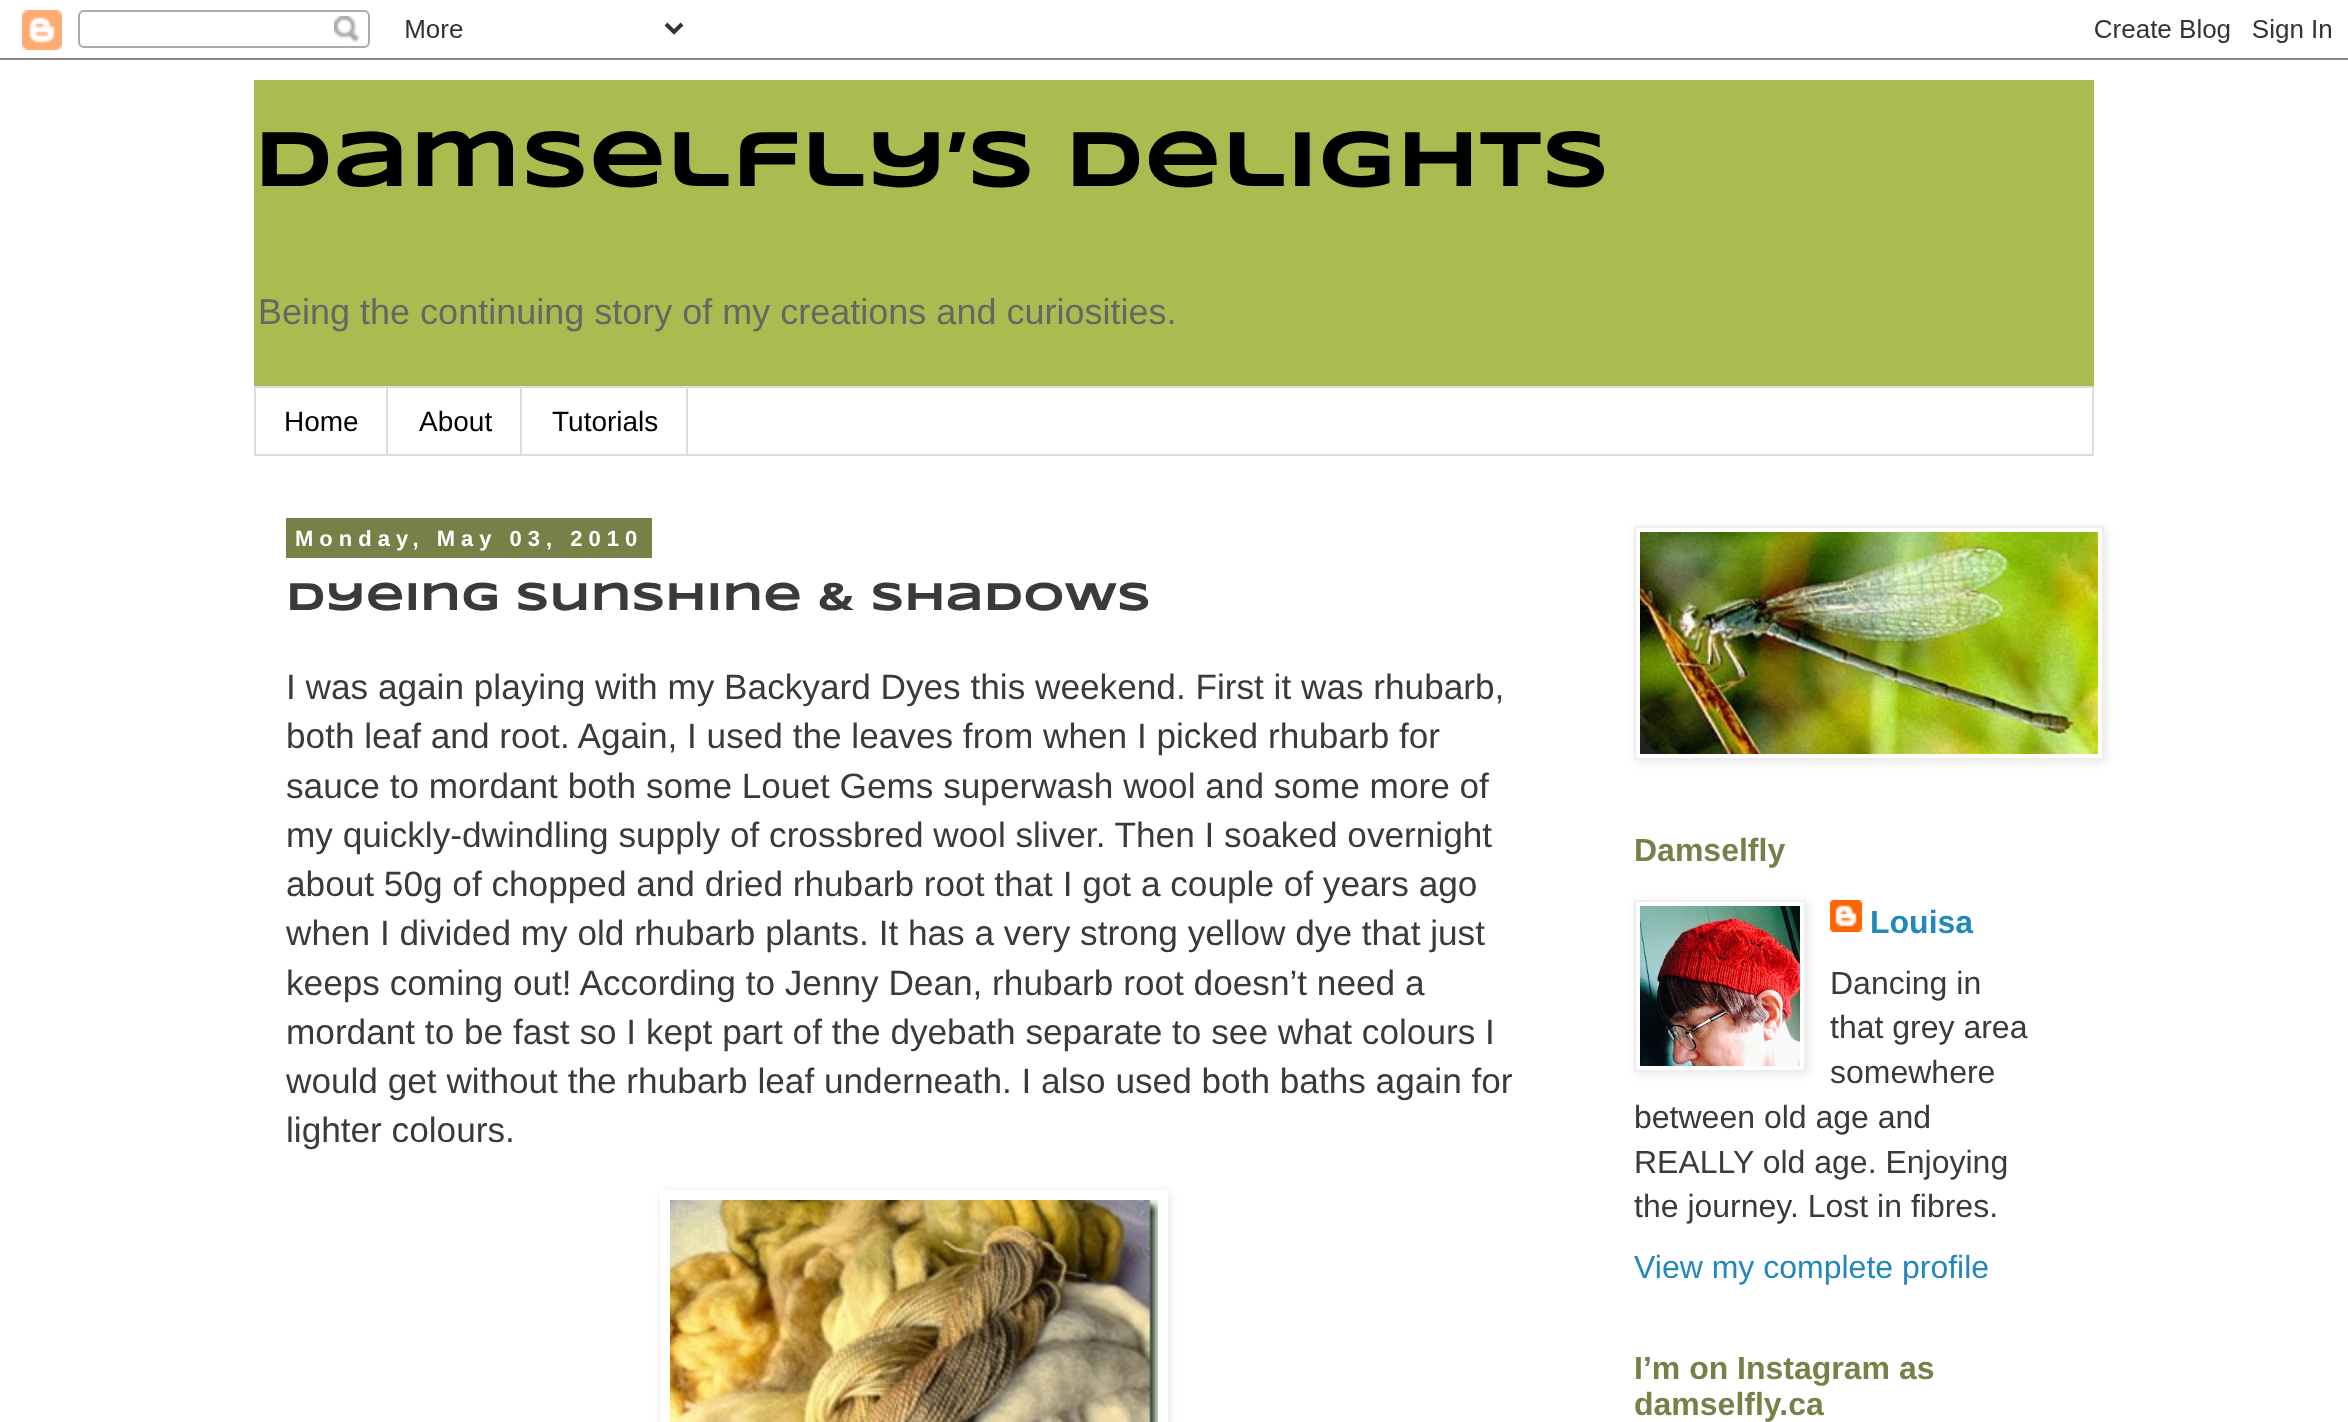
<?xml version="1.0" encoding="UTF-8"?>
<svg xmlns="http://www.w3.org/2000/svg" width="2348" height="1422">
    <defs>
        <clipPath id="clip1"><path d="M 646 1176 H 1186 V 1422 H 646 Z M 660 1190 H 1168 V 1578 H 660 Z" clip-rule="evenodd"/></clipPath>
        <filter id="blur1" x="-50%" y="-200%" width="200%" height="500%"><feGaussianBlur stdDeviation="5"/></filter>
        <clipPath id="clip2"><path d="M 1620 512 H 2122 V 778 H 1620 Z M 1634 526 H 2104 V 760 H 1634 Z" clip-rule="evenodd"/></clipPath>
        <clipPath id="clip3"><path d="M 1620 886 H 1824 V 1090 H 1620 Z M 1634 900 H 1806 V 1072 H 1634 Z" clip-rule="evenodd"/></clipPath>
    </defs>
    <rect width="100%" height="100%" fill="#FFFFFF"/>
    <image x="0" y="10" width="2348" height="50" href="img_01.png"/>
    <rect x="254" y="80" width="1840" height="306" fill="#ACBB4F"/>
    <text x="254" y="186" font-family="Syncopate" font-size="80" font-weight="700" fill="#000000">Damselfly’s Delights</text>
    <text x="258" y="324" font-family="Liberation Sans" font-size="36" fill="#666666">Being the continuing story of my creations and curiosities.</text>
    <rect x="255" y="387" width="1838" height="68" fill="none" stroke="#DDDDDD" stroke-width="2"/>
    <rect x="386" y="388" width="2" height="66" fill="#DDDDDD"/>
    <text x="284" y="431" font-family="Liberation Sans" font-size="28" fill="#000000">Home</text>
    <rect x="520" y="388" width="2" height="66" fill="#DDDDDD"/>
    <text x="419" y="431" font-family="Liberation Sans" font-size="28" fill="#000000">About</text>
    <rect x="686" y="388" width="2" height="66" fill="#DDDDDD"/>
    <text x="552" y="431" font-family="Liberation Sans" font-size="28" fill="#000000">Tutorials</text>
    <rect x="286" y="518" width="366" height="40" fill="#787F47"/>
    <text x="295" y="546" font-family="Liberation Sans" font-size="22" font-weight="700" letter-spacing="6" fill="#FFFFFF">Monday, May 03, 2010</text>
    <text x="286" y="610" font-family="Syncopate" font-size="40" font-weight="700" fill="#3B3939">Dyeing Sunshine &amp; Shadows</text>
    <text font-family="Liberation Sans" font-size="35.2" fill="#3B3939">
        <tspan x="286" y="699">I was again playing with my Backyard Dyes this weekend. First it was rhubarb,</tspan>
        <tspan x="286" y="748">both leaf and root. Again, I used the leaves from when I picked rhubarb for</tspan>
        <tspan x="286" y="798">sauce to mordant both some Louet Gems superwash wool and some more of</tspan>
        <tspan x="286" y="847">my quickly-dwindling supply of crossbred wool sliver. Then I soaked overnight</tspan>
        <tspan x="286" y="896">about 50g of chopped and dried rhubarb root that I got a couple of years ago</tspan>
        <tspan x="286" y="945">when I divided my old rhubarb plants. It has a very strong yellow dye that just</tspan>
        <tspan x="286" y="995">keeps coming out! According to Jenny Dean, rhubarb root doesn’t need a</tspan>
        <tspan x="286" y="1044">mordant to be fast so I kept part of the dyebath separate to see what colours I</tspan>
        <tspan x="286" y="1093">would get without the rhubarb leaf underneath. I also used both baths again for</tspan>
        <tspan x="286" y="1142">lighter colours.</tspan>
    </text>
    <g clip-path="url(#clip1)">
        <rect x="662" y="1192" width="508" height="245" fill="#000000" fill-opacity="0.1" filter="url(#blur1)"/>
    </g>
    <image x="670" y="1200" width="488" height="222" href="img_02.png"/>
    <g clip-path="url(#clip2)">
        <rect x="1636" y="528" width="470" height="234" fill="#000000" fill-opacity="0.1" filter="url(#blur1)"/>
    </g>
    <rect x="1635" y="527" width="468" height="232" fill="none" stroke="#EEEEEE" stroke-width="2"/>
    <image x="1640" y="532" width="458" height="222" href="img_03.png"/>
    <text x="1634" y="861" font-family="Liberation Sans" font-size="32" font-weight="700" fill="#787F47">Damselfly</text>
    <g clip-path="url(#clip3)">
        <rect x="1636" y="902" width="172" height="172" fill="#000000" fill-opacity="0.1" filter="url(#blur1)"/>
    </g>
    <rect x="1635" y="901" width="170" height="170" fill="none" stroke="#EEEEEE" stroke-width="2"/>
    <image x="1640" y="906" width="160" height="160" href="img_04.png"/>
    <image x="1830" y="900" width="32" height="32" href="img_05.png"/>
    <text x="1870" y="933" font-family="Liberation Sans" font-size="32" font-weight="700" fill="#2288BB">Louisa</text>
    <text font-family="Liberation Sans" font-size="32" fill="#3B3939">
        <tspan x="1830" y="994">Dancing in</tspan>
        <tspan x="1830" y="1038">that grey area</tspan>
        <tspan x="1830" y="1083">somewhere</tspan>
    </text>
    <text font-family="Liberation Sans" font-size="32" fill="#3B3939">
        <tspan x="1634" y="1128">between old age and</tspan>
        <tspan x="1634" y="1173">REALLY old age. Enjoying</tspan>
        <tspan x="1634" y="1217">the journey. Lost in fibres.</tspan>
    </text>
    <text x="1634" y="1278" font-family="Liberation Sans" font-size="32" fill="#2288BB">View my complete profile</text>
    <text font-family="Liberation Sans" font-size="32" font-weight="700" fill="#787F47">
        <tspan x="1634" y="1379">I’m on Instagram as</tspan>
        <tspan x="1634" y="1415">damselfly.ca</tspan>
    </text>
</svg>
